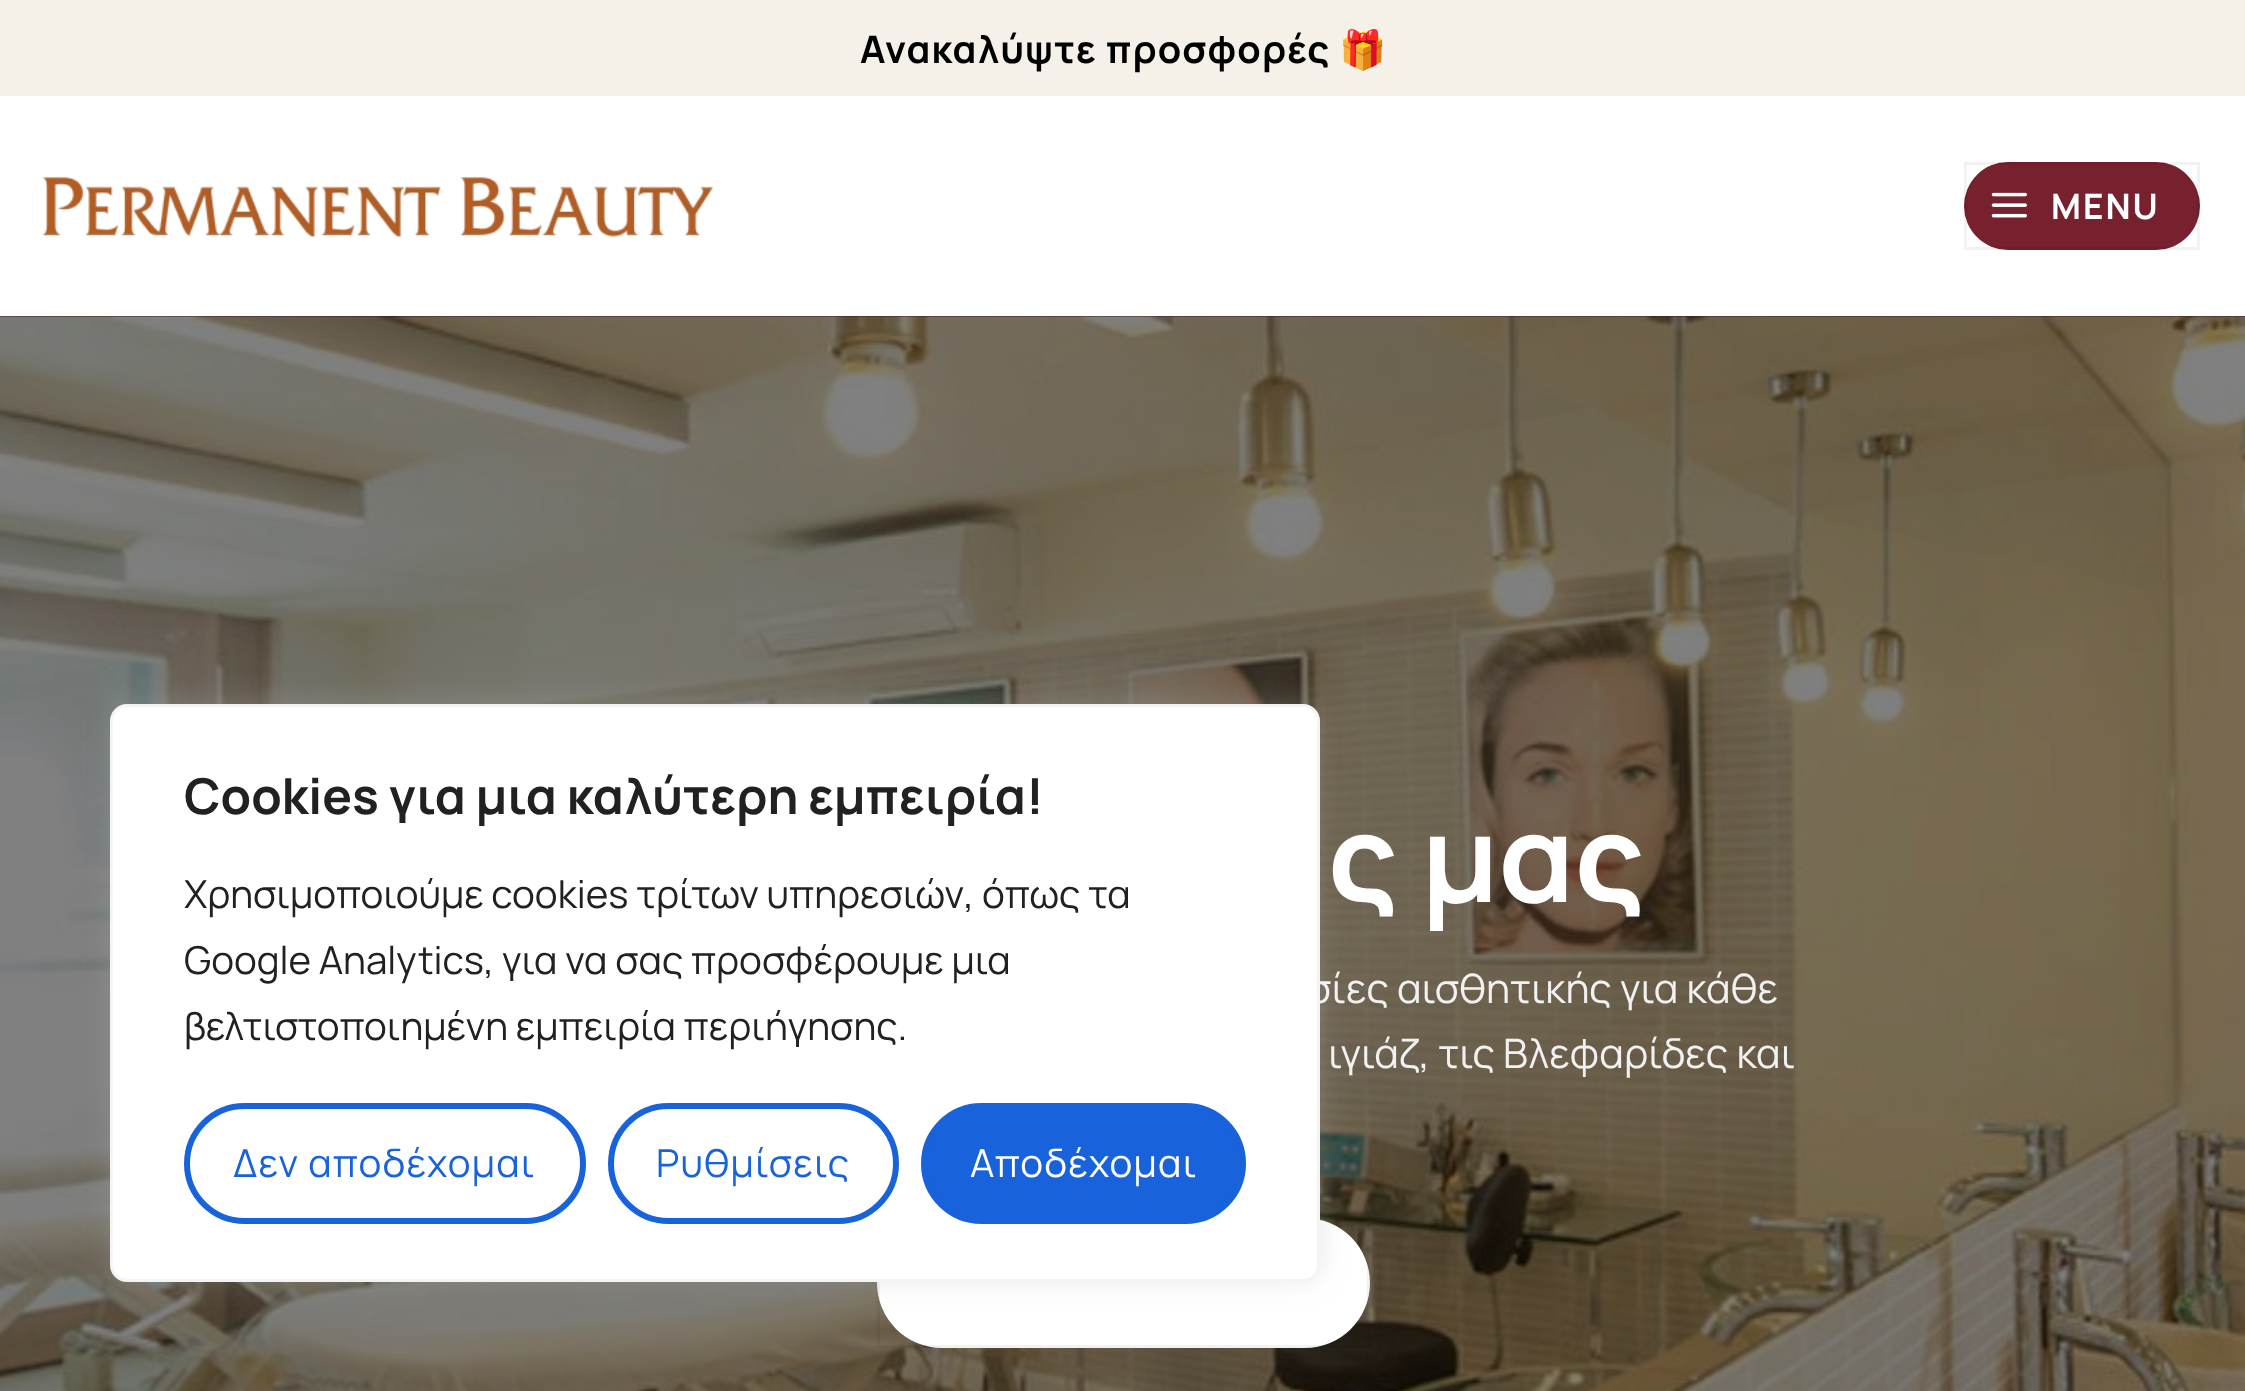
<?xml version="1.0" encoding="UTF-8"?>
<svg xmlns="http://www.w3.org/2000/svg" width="2245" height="1391">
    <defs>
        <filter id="blur1" x="-50%" y="-200%" width="200%" height="500%"><feGaussianBlur stdDeviation="14"/></filter>
    </defs>
    <rect width="100%" height="100%" fill="#FFFFFF"/>
    <rect x="0" y="316" width="2245" height="1" fill="#3B1117"/>
    <image x="0" y="316" width="2245" height="1075" href="img_03.png"/>
    <rect x="877" y="1218" width="493" height="130" rx="65" fill="#FFFFFF"/>
    <rect x="878.5" y="1219.5" width="490" height="127" fill="none" stroke="#000000" stroke-opacity="0.05" stroke-width="3"/>
    <rect x="110" y="701" width="1210" height="578" rx="17" fill="#ACABAB" fill-opacity="0.3" filter="url(#blur1)"/>
    <text x="1307" y="1003" font-family="Manrope" font-size="40.5" fill="#F1F1F1">σίες αισθητικής για κάθε</text>
    <rect x="111.5" y="705.5" width="1207" height="575" rx="15.5" fill="#FFFFFF" stroke="#F4F4F4" stroke-width="3"/>
    <text x="184" y="814" font-family="Manrope" font-size="49.5" font-weight="700" fill="#212121">Cookies για μια καλύτερη εμπειρία!</text>
    <text font-family="Manrope" font-size="38.5" fill="#212121">
        <tspan x="184" y="908">Χρησιμοποιούμε cookies τρίτων υπηρεσιών, όπως τα</tspan>
        <tspan x="184" y="974">Google Analytics, για να σας προσφέρουμε μια</tspan>
        <tspan x="184" y="1040">βελτιστοποιημένη εμπειρία περιήγησης.</tspan>
    </text>
    <rect x="187" y="1106" width="396" height="115" rx="57.5" fill="none" stroke="#1863DC" stroke-width="6"/>
    <text x="233" y="1177" font-family="Manrope" font-size="38.5" letter-spacing="1.2" fill="#1863DC">Δεν αποδέχομαι</text>
    <rect x="611" y="1106" width="285" height="115" rx="57.5" fill="none" stroke="#1863DC" stroke-width="6"/>
    <text x="656" y="1177" font-family="Manrope" font-size="38.5" letter-spacing="1.2" fill="#1863DC">Ρυθμίσεις</text>
    <rect x="924" y="1106" width="319" height="115" rx="57.5" fill="#1863DC" stroke="#1863DC" stroke-width="6"/>
    <text x="970" y="1177" font-family="Manrope" font-size="38.5" letter-spacing="1.2" fill="#FFFFFF">Αποδέχομαι</text>
    <rect x="0" y="0" width="2245" height="96" fill="#F5F1E9"/>
    <text x="860" y="63" font-family="Manrope" font-size="38" font-weight="700" letter-spacing="1.1" fill="#000000">Ανακαλύψτε προσφορές</text>
    <text x="1339" y="63" font-family="Noto Color Emoji" font-size="38" font-weight="700" letter-spacing="1.1" fill="#000000">🎁</text>
    <image x="42" y="176" width="672" height="61" href="img_01.png"/>
    <rect x="1964" y="162" width="236" height="88" rx="44" fill="#76212D"/>
    <rect x="1965.5" y="163.5" width="233" height="85" fill="none" stroke="#000000" stroke-opacity="0.05" stroke-width="3"/>
    <image x="1991" y="192" width="36" height="26" href="img_02.png"/>
    <text x="2051" y="219" font-family="Manrope" font-size="35" font-weight="700" letter-spacing="2" fill="#FFFFFF">MENU</text>
    <text x="1328" y="902" font-family="Manrope" font-size="121" font-weight="700" fill="#FFFFFF">ς μας</text>
    <text x="1328" y="1068" font-family="Manrope" font-size="40.5" fill="#F1F1F1">ιγιάζ, τις Βλεφαρίδες και</text>
</svg>
